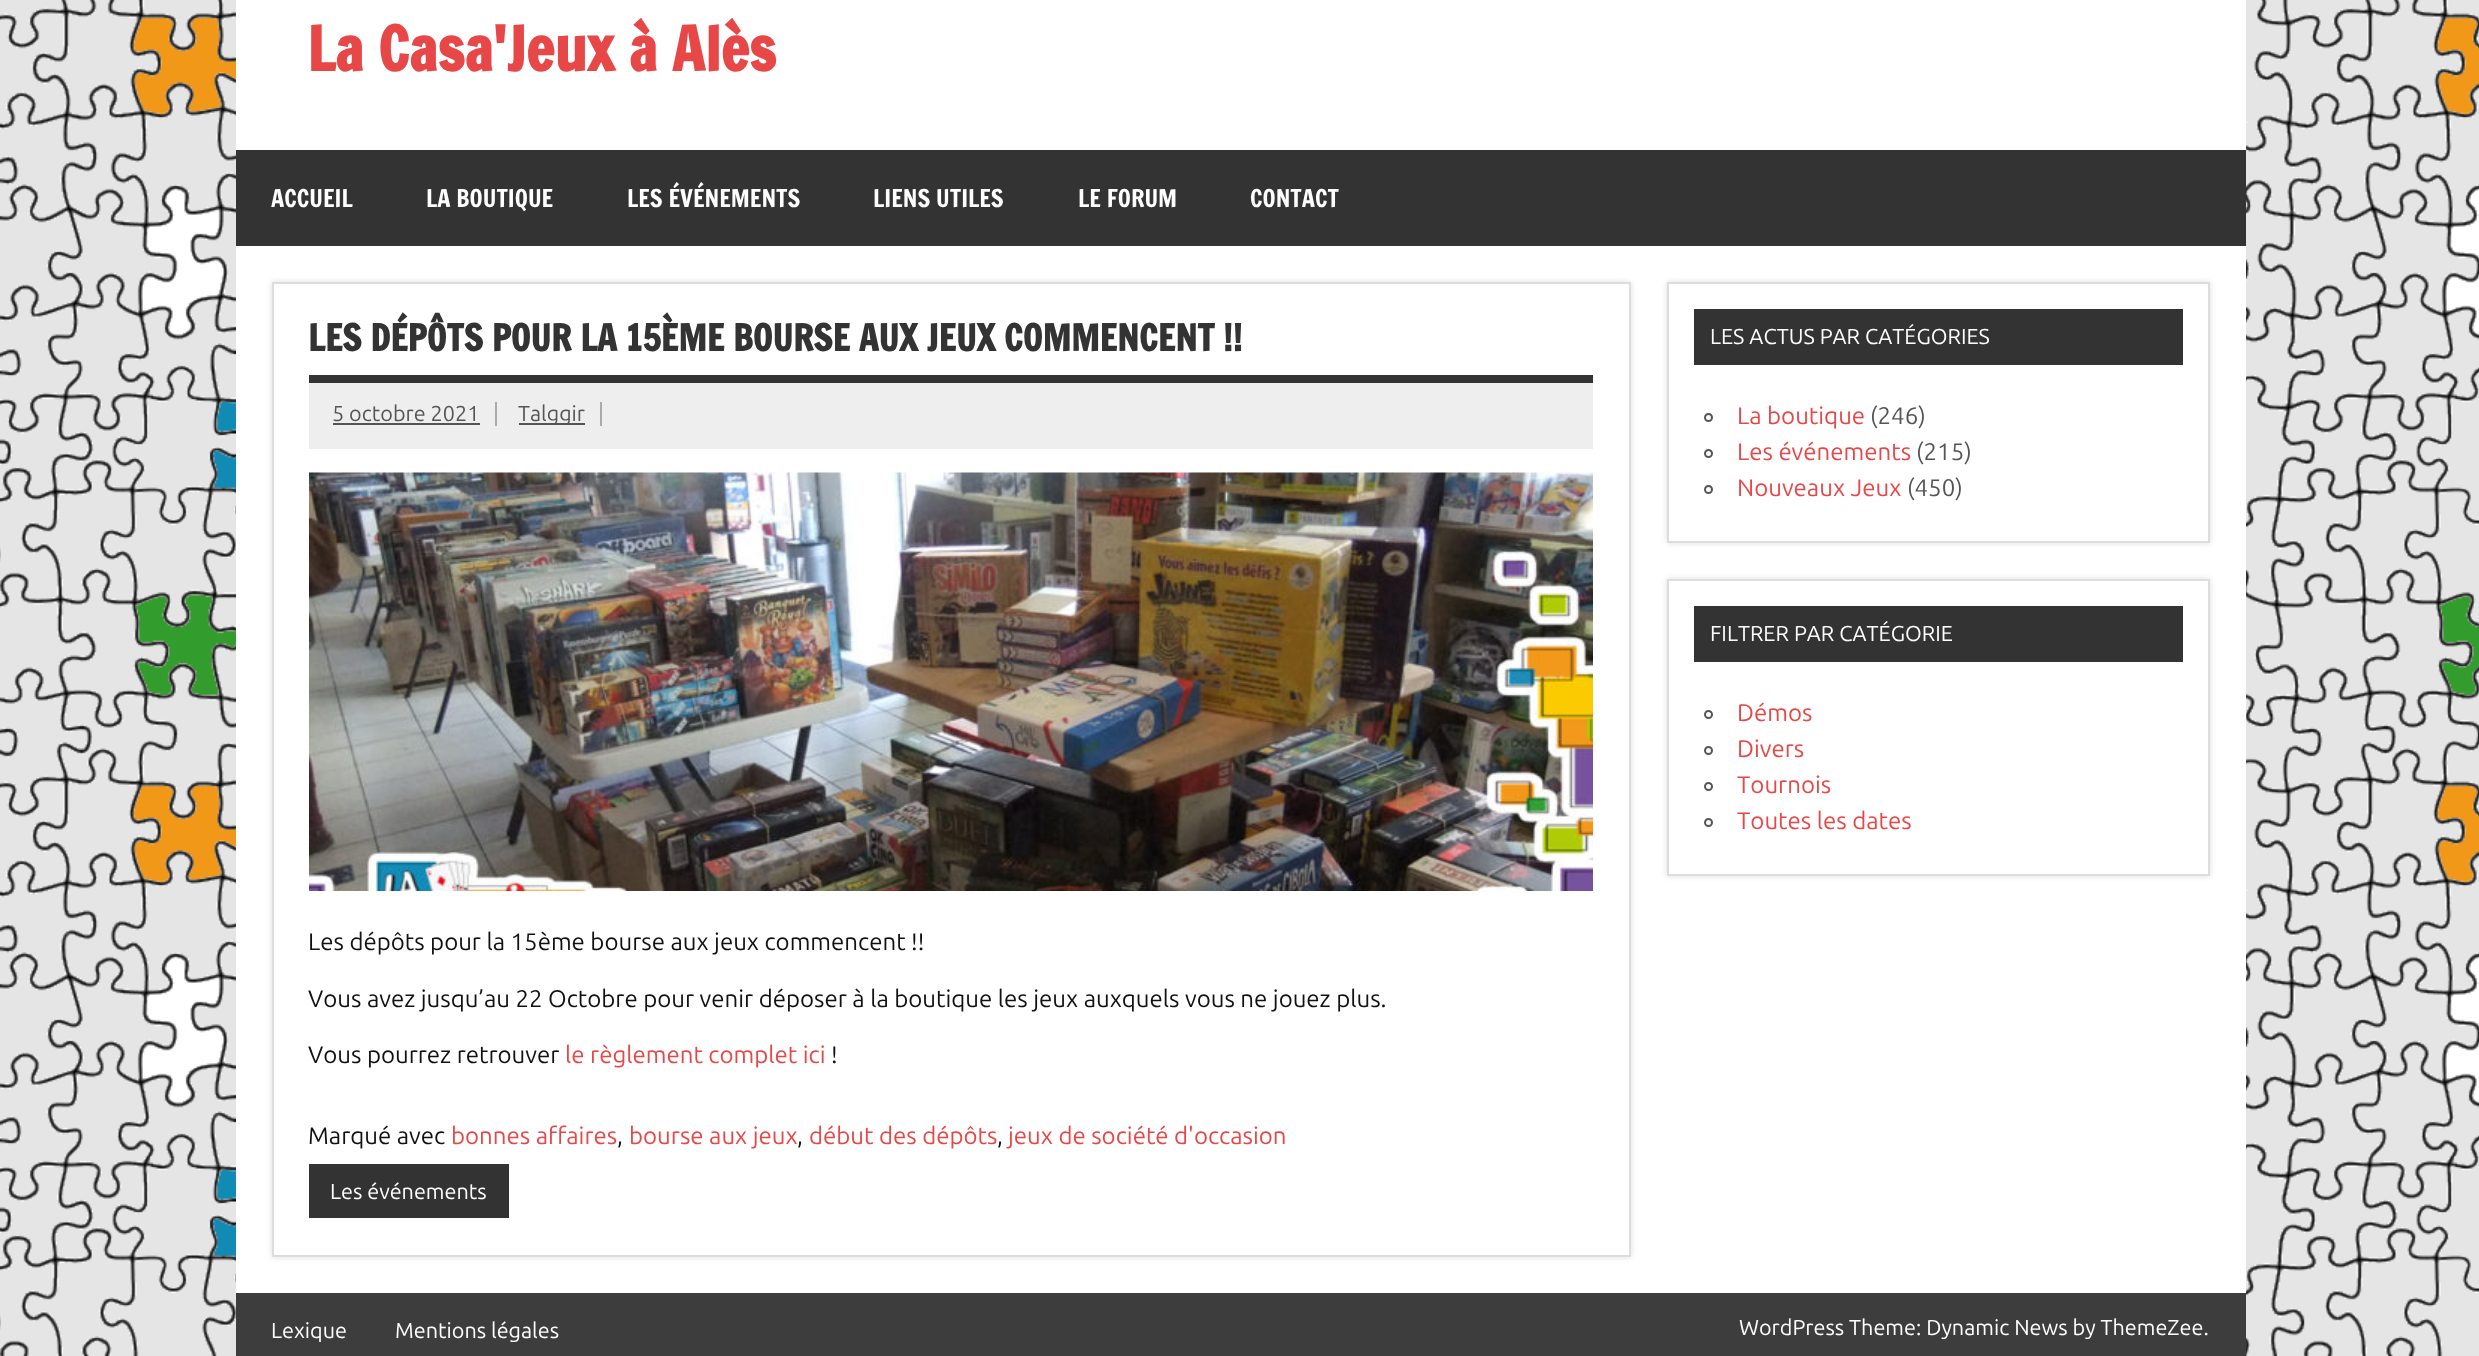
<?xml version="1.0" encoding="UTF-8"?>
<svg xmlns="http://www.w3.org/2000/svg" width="2479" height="1356">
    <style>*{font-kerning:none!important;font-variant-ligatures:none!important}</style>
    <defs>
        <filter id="blur1" x="-50%" y="-200%" width="200%" height="500%"><feGaussianBlur stdDeviation="3"/></filter>
    </defs>
    <rect width="100%" height="100%" fill="#E5E5E5"/>
    <image x="0" y="0" width="2479" height="1356" href="img_01.png"/>
    <rect x="236" y="0" width="2010" height="1293" fill="#FFFFFF"/>
    <text x="307" y="71" font-family="Francois One" font-size="60" font-weight="700" fill="#E84747">La Casa'Jeux à Alès</text>
    <rect x="236" y="150" width="2010" height="96" fill="#333333"/>
    <text x="271" y="207" font-family="Francois One" font-size="24" fill="#FFFFFF">ACCUEIL</text>
    <text x="426" y="207" font-family="Francois One" font-size="24" fill="#FFFFFF">LA BOUTIQUE</text>
    <text x="627" y="207" font-family="Francois One" font-size="24" fill="#FFFFFF">LES ÉVÉNEMENTS</text>
    <text x="873" y="207" font-family="Francois One" font-size="24" fill="#FFFFFF">LIENS UTILES</text>
    <text x="1078" y="207" font-family="Francois One" font-size="24" fill="#FFFFFF">LE FORUM</text>
    <text x="1250" y="207" font-family="Francois One" font-size="24" fill="#FFFFFF">CONTACT</text>
    <rect x="272" y="282" width="1359" height="975" fill="#DDDDDD" filter="url(#blur1)"/>
    <rect x="273" y="283" width="1357" height="973" fill="#FFFFFF" stroke="#DDDDDD" stroke-width="2"/>
    <rect x="309" y="375" width="1284" height="8" fill="#333333"/>
    <text x="308" y="351" font-family="Francois One" font-size="36" font-weight="700" fill="#333333">LES DÉPÔTS POUR LA 15ÈME BOURSE AUX JEUX COMMENCENT !!</text>
    <rect x="309" y="383" width="1284" height="66" fill="#EEEEEE"/>
    <text x="332" y="421" font-family="Ubuntu" font-size="21.6" fill="#555555">5 octobre 2021</text>
    <rect x="495" y="402" width="2" height="24" fill="#AAAAAA"/>
    <rect x="333" y="423" width="147" height="2" fill="#555555"/>
    <rect x="519" y="423" width="66" height="2" fill="#555555"/>
    <text x="518" y="421" font-family="Ubuntu" font-size="21.6" fill="#555555">Talggir</text>
    <rect x="600" y="402" width="2" height="24" fill="#AAAAAA"/>
    <image x="309" y="472" width="1284" height="419" href="img_02.png"/>
    <text x="308" y="950" font-family="Ubuntu" font-size="24" fill="#111111">Les dépôts pour la 15ème bourse aux jeux commencent !!</text>
    <text x="308" y="1007" font-family="Ubuntu" font-size="24" fill="#111111">Vous avez jusqu’au 22 Octobre pour venir déposer à la boutique les jeux auxquels vous ne jouez plus.</text>
    <text x="308" y="1063" font-family="Ubuntu" font-size="24" fill="#111111">Vous pourrez retrouver</text>
    <text x="565" y="1063" font-family="Ubuntu" font-size="24" fill="#E84747">le règlement complet ici</text>
    <text x="831" y="1063" font-family="Ubuntu" font-size="24" fill="#111111">!</text>
    <text x="308" y="1144" font-family="Ubuntu" font-size="24" fill="#111111">Marqué avec</text>
    <text x="451" y="1144" font-family="Ubuntu" font-size="24" fill="#E84747">bonnes affaires</text>
    <text x="617" y="1144" font-family="Ubuntu" font-size="24" fill="#111111">,</text>
    <text x="629" y="1144" font-family="Ubuntu" font-size="24" fill="#E84747">bourse aux jeux</text>
    <text x="797" y="1144" font-family="Ubuntu" font-size="24" fill="#111111">,</text>
    <text x="809" y="1144" font-family="Ubuntu" font-size="24" fill="#E84747">début des dépôts</text>
    <text x="997" y="1144" font-family="Ubuntu" font-size="24" fill="#111111">,</text>
    <text x="1008" y="1144" font-family="Ubuntu" font-size="24" fill="#E84747">jeux de société d'occasion</text>
    <rect x="309" y="1164" width="200" height="54" fill="#333333"/>
    <text x="330" y="1199" font-family="Ubuntu" font-size="21.6" fill="#FFFFFF">Les événements</text>
    <rect x="1667" y="282" width="543" height="261" fill="#DDDDDD" filter="url(#blur1)"/>
    <rect x="1668" y="283" width="541" height="259" fill="#FFFFFF" stroke="#DDDDDD" stroke-width="2"/>
    <rect x="1694" y="309" width="489" height="56" fill="#333333"/>
    <text x="1710" y="344" font-family="Ubuntu" font-size="21.6" fill="#FFFFFF">LES ACTUS PAR CATÉGORIES</text>
    <circle cx="1708.5" cy="417.5" r="3.5" fill="none" stroke="#555555" stroke-width="2"/>
    <text x="1737" y="424" font-family="Ubuntu" font-size="24" fill="#E84747">La boutique</text>
    <text x="1870" y="424" font-family="Ubuntu" font-size="24" fill="#555555">(246)</text>
    <circle cx="1708.5" cy="453.5" r="3.5" fill="none" stroke="#555555" stroke-width="2"/>
    <text x="1737" y="460" font-family="Ubuntu" font-size="24" fill="#E84747">Les événements</text>
    <text x="1916" y="460" font-family="Ubuntu" font-size="24" fill="#555555">(215)</text>
    <circle cx="1708.5" cy="489.5" r="3.5" fill="none" stroke="#555555" stroke-width="2"/>
    <text x="1737" y="496" font-family="Ubuntu" font-size="24" fill="#E84747">Nouveaux Jeux</text>
    <text x="1907" y="496" font-family="Ubuntu" font-size="24" fill="#555555">(450)</text>
    <rect x="1667" y="579" width="543" height="297" fill="#DDDDDD" filter="url(#blur1)"/>
    <rect x="1668" y="580" width="541" height="295" fill="#FFFFFF" stroke="#DDDDDD" stroke-width="2"/>
    <rect x="1694" y="606" width="489" height="56" fill="#333333"/>
    <text x="1710" y="641" font-family="Ubuntu" font-size="21.6" fill="#FFFFFF">FILTRER PAR CATÉGORIE</text>
    <circle cx="1708.5" cy="714.5" r="3.5" fill="none" stroke="#555555" stroke-width="2"/>
    <text x="1737" y="721" font-family="Ubuntu" font-size="24" fill="#E84747">Démos</text>
    <circle cx="1708.5" cy="750.5" r="3.5" fill="none" stroke="#555555" stroke-width="2"/>
    <text x="1737" y="757" font-family="Ubuntu" font-size="24" fill="#E84747">Divers</text>
    <circle cx="1708.5" cy="786.5" r="3.5" fill="none" stroke="#555555" stroke-width="2"/>
    <text x="1737" y="793" font-family="Ubuntu" font-size="24" fill="#E84747">Tournois</text>
    <circle cx="1708.5" cy="822.5" r="3.5" fill="none" stroke="#555555" stroke-width="2"/>
    <text x="1737" y="829" font-family="Ubuntu" font-size="24" fill="#E84747">Toutes les dates</text>
    <rect x="236" y="1293" width="2010" height="63" fill="#3D3D3D"/>
    <text x="271" y="1338" font-family="Ubuntu" font-size="21.6" fill="#FFFFFF">Lexique</text>
    <text x="395" y="1338" font-family="Ubuntu" font-size="21.6" fill="#FFFFFF">Mentions légales</text>
    <text x="1739" y="1335" font-family="Ubuntu" font-size="21.6" fill="#FFFFFF">WordPress Theme: Dynamic News by ThemeZee.</text>
</svg>
